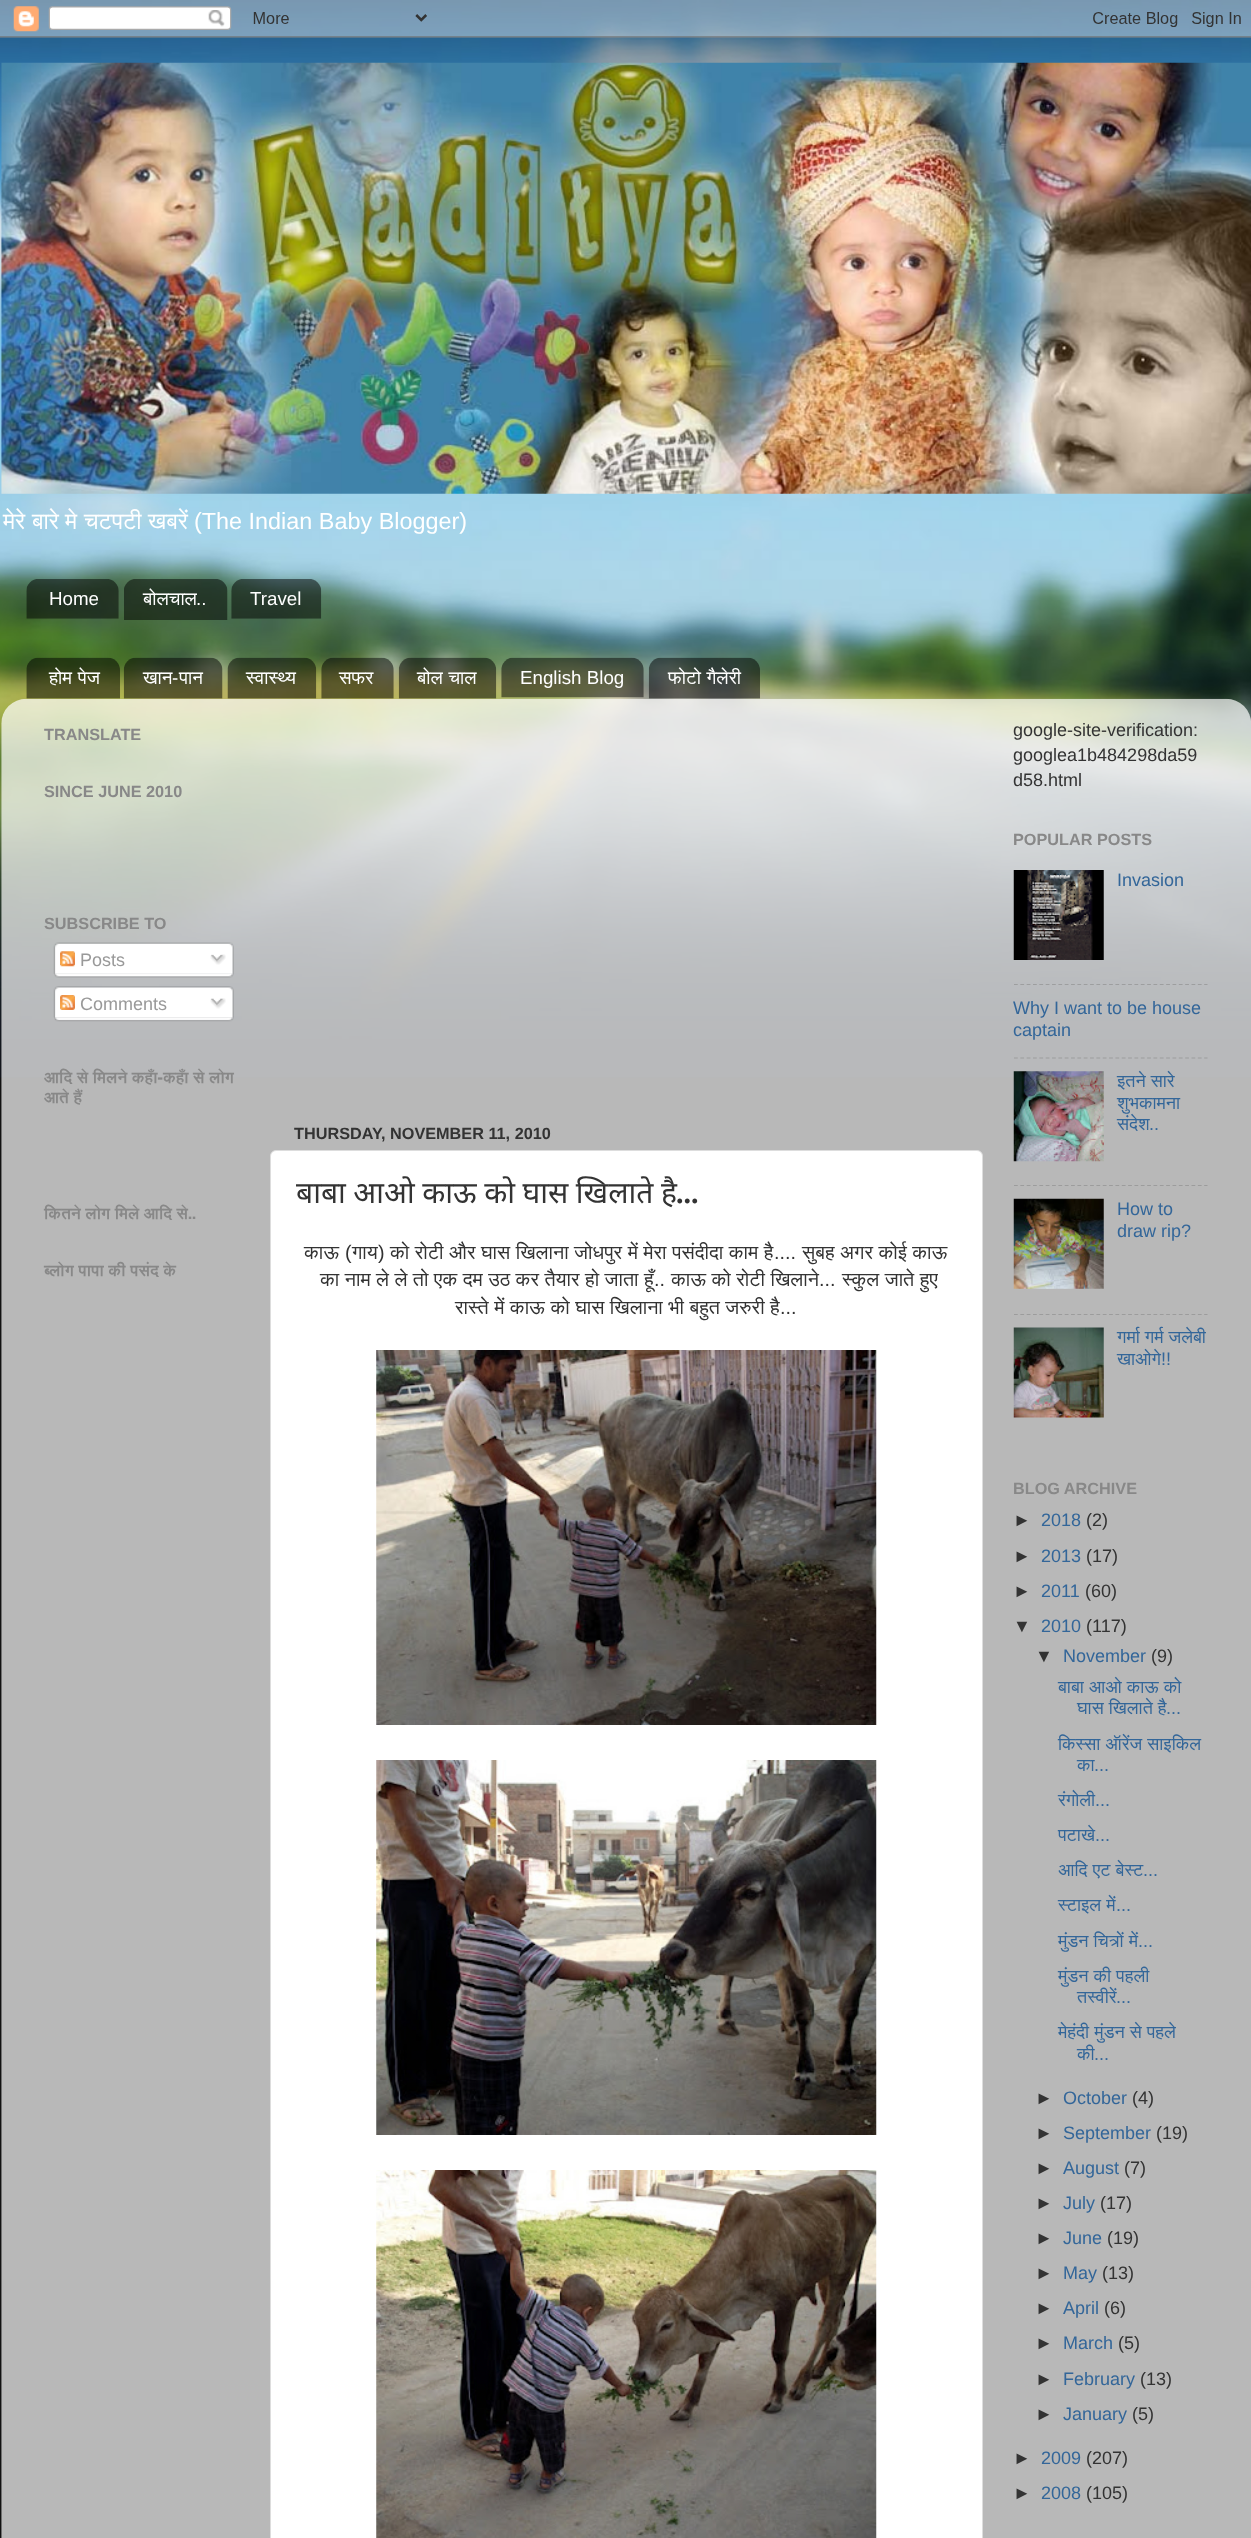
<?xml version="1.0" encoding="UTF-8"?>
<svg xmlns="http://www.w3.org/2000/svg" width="1251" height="2538">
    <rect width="100%" height="100%" fill="#111111"/>
    <image x="0" y="0" width="1251" height="1078" href="img_01.png"/>
    <image x="0" y="0" width="1251" height="38" href="img_02.png"/>
    <image x="1" y="62" width="1250" height="432" href="img_03.png"/>
    <text x="3" y="529" font-family="FreeSans" font-size="23.4" fill="#FFFFFF">मेरे</text>
    <text x="32" y="529" font-family="FreeSans" font-size="23.4" fill="#FFFFFF">बारे</text>
    <text x="65" y="529" font-family="FreeSans" font-size="23.4" fill="#FFFFFF">मे</text>
    <text x="84" y="529" font-family="FreeSans" font-size="23.4" fill="#FFFFFF">चटपटी</text>
    <text x="148" y="529" font-family="FreeSans" font-size="23.4" fill="#FFFFFF">खबरें</text>
    <text x="194" y="529" font-family="Liberation Sans" font-size="23.4" fill="#FFFFFF">(The Indian Baby Blogger)</text>
    <image x="26" y="579" width="93" height="40" href="img_04.png"/>
    <text x="49" y="605" font-family="Liberation Sans" font-size="18.75" fill="#FFFFFF">Home</text>
    <image x="124" y="579" width="104" height="41" href="img_05.png"/>
    <text x="143" y="605" font-family="FreeSans" font-size="18.75" fill="#FFFFFF">बोलचाल</text>
    <text x="196" y="605" font-family="Liberation Sans" font-size="18.75" fill="#FFFFFF">..</text>
    <image x="231" y="579" width="91" height="40" href="img_06.png"/>
    <text x="250" y="605" font-family="Liberation Sans" font-size="18.75" fill="#FFFFFF">Travel</text>
    <image x="26" y="657" width="94" height="42" href="img_07.png"/>
    <text x="49" y="684" word-spacing="1" font-family="FreeSans" font-size="18.75" fill="#FFFFFF">होम पेज</text>
    <image x="123" y="657" width="100" height="42" href="img_08.png"/>
    <text x="143" y="684" font-family="FreeSans" font-size="18.75" fill="#FFFFFF">खान</text>
    <text x="172" y="684" font-family="Liberation Sans" font-size="18.75" fill="#FFFFFF">-</text>
    <text x="179" y="684" font-family="FreeSans" font-size="18.75" fill="#FFFFFF">पान</text>
    <image x="227" y="657" width="90" height="42" href="img_09.png"/>
    <text x="246" y="684" font-family="FreeSans" font-size="18.75" fill="#FFFFFF">स्वास्थ्य</text>
    <image x="321" y="657" width="73" height="42" href="img_10.png"/>
    <text x="339" y="684" font-family="FreeSans" font-size="18.75" fill="#FFFFFF">सफर</text>
    <image x="398" y="657" width="99" height="42" href="img_11.png"/>
    <text x="417" y="684" word-spacing="1" font-family="FreeSans" font-size="18.75" fill="#FFFFFF">बोल चाल</text>
    <image x="501" y="657" width="143" height="41" href="img_12.png"/>
    <text x="520" y="684" font-family="Liberation Sans" font-size="18.75" fill="#FFFFFF">English Blog</text>
    <image x="648" y="657" width="112" height="42" href="img_13.png"/>
    <text x="668" y="684" word-spacing="1" font-family="FreeSans" font-size="18.75" fill="#FFFFFF">फोटो गैलेरी</text>
    <image x="1" y="698" width="1250" height="1840" href="img_14.png"/>
    <text x="44" y="740" font-family="Liberation Sans" font-size="16.25" font-weight="700" fill="#888888">TRANSLATE</text>
    <text x="44" y="797" font-family="Liberation Sans" font-size="16.25" font-weight="700" fill="#888888">SINCE JUNE 2010</text>
    <text x="44" y="929" font-family="Liberation Sans" font-size="16.25" font-weight="700" fill="#888888">SUBSCRIBE TO</text>
    <image x="53" y="942" width="181" height="32" href="img_15.png"/>
    <image x="60" y="951" width="15" height="16" href="img_16.png"/>
    <text x="80" y="966" font-family="Liberation Sans" font-size="18" fill="#999999">Posts</text>
    <image x="210" y="954" width="16" height="11" href="img_17.png"/>
    <image x="54" y="973" width="180" height="5" href="img_18.png"/>
    <image x="53" y="986" width="181" height="32" href="img_19.png"/>
    <image x="60" y="995" width="15" height="15" href="img_20.png"/>
    <text x="80" y="1010" font-family="Liberation Sans" font-size="18" fill="#999999">Comments</text>
    <image x="210" y="998" width="16" height="11" href="img_21.png"/>
    <image x="54" y="1017" width="180" height="5" href="img_22.png"/>
    <text font-family="FreeSans" font-size="16.25" font-weight="600" fill="#888888">
        <tspan x="44" y="1083">आदि से मिलने कहाँ-कहाँ से लोग</tspan>
        <tspan x="44" y="1103">आते हैं</tspan>
    </text>
    <text x="44" y="1219" font-family="FreeSans" font-size="16.25" font-weight="600" fill="#888888">कितने लोग मिले आदि से..</text>
    <text x="44" y="1276" font-family="FreeSans" font-size="16.25" font-weight="600" fill="#888888">ब्लोग पापा की पसंद के</text>
    <text x="294" y="1139" font-family="Liberation Sans" font-size="16.25" font-weight="700" fill="#333333">THURSDAY, NOVEMBER 11, 2010</text>
    <rect x="270.5" y="1150.5" width="712" height="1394" rx="5.5" fill="#FFFFFF" stroke="#DDDDDD"/>
    <text x="296" y="1203" word-spacing="-0.25" font-family="Noto Sans" font-size="30" fill="#333333">बाबा आओ काऊ को घास खिलाते है</text>
    <text x="676" y="1203" font-family="Liberation Serif" font-size="30" font-weight="700" fill="#333333">...</text>
    <text x="304" y="1259" font-family="FreeSans" font-size="19.75" fill="#333333">काऊ</text>
    <text x="345" y="1259" font-family="Liberation Sans" font-size="19.75" fill="#333333">(</text>
    <text x="352" y="1259" font-family="FreeSans" font-size="19.75" fill="#333333">गाय</text>
    <text x="378" y="1259" font-family="Liberation Sans" font-size="19.75" fill="#333333">)</text>
    <text x="390" y="1259" word-spacing="0.5" font-family="FreeSans" font-size="19.75" fill="#333333">को रोटी और घास खिलाना जोधपुर में मेरा पसंदीदा काम है</text>
    <text x="774" y="1259" font-family="Liberation Sans" font-size="19.75" fill="#333333">....</text>
    <text x="802" y="1259" word-spacing="0.5" font-family="FreeSans" font-size="19.75" fill="#333333">सुबह अगर कोई काऊ</text>
    <text x="320" y="1286" word-spacing="0.5" font-family="FreeSans" font-size="19.75" fill="#333333">का नाम ले ले तो एक दम उठ कर तैयार हो जाता हूँ</text>
    <text x="654" y="1286" font-family="Liberation Sans" font-size="19.75" fill="#333333">..</text>
    <text x="671" y="1286" word-spacing="0.5" font-family="FreeSans" font-size="19.75" fill="#333333">काऊ को रोटी खिलाने</text>
    <text x="819" y="1286" font-family="Liberation Sans" font-size="19.75" fill="#333333">...</text>
    <text x="842" y="1286" word-spacing="0.5" font-family="FreeSans" font-size="19.75" fill="#333333">स्कुल जाते हुए</text>
    <text x="455" y="1314" word-spacing="0.5" font-family="FreeSans" font-size="19.75" fill="#333333">रास्ते में काऊ को घास खिलाना भी बहुत जरुरी है</text>
    <text x="780" y="1314" font-family="Liberation Sans" font-size="19.75" fill="#333333">...</text>
    <image x="376" y="1350" width="501" height="375" href="img_23.png"/>
    <image x="376" y="1760" width="501" height="375" href="img_24.png"/>
    <image x="376" y="2170" width="501" height="368" href="img_25.png"/>
    <text font-family="Liberation Sans" font-size="18" fill="#333333">
        <tspan x="1013" y="736">google-site-verification:</tspan>
        <tspan x="1013" y="761">googlea1b484298da59</tspan>
        <tspan x="1013" y="786">d58.html</tspan>
    </text>
    <text x="1013" y="845" font-family="Liberation Sans" font-size="16.25" font-weight="700" fill="#888888">POPULAR POSTS</text>
    <image x="1013" y="870" width="91" height="90" href="img_26.png"/>
    <text x="1117" y="886" font-family="Liberation Sans" font-size="18" fill="#336699">Invasion</text>
    <path d="M 1014 984.5 H 1207.5" fill="none" stroke="#9D9E9F" stroke-width="1.2" stroke-dasharray="3.75 2.59"/>
    <text font-family="Liberation Sans" font-size="18" fill="#336699">
        <tspan x="1013" y="1014">Why I want to be house</tspan>
        <tspan x="1013" y="1036">captain</tspan>
    </text>
    <path d="M 1014 1058 H 1207.5" fill="none" stroke="#9C9D9E" stroke-width="1.2" stroke-dasharray="3.75 2.59"/>
    <image x="1013" y="1071" width="91" height="91" href="img_27.png"/>
    <text font-family="FreeSans" font-size="18" fill="#336699">
        <tspan x="1117" y="1087" word-spacing="0.5">इतने सारे</tspan>
        <tspan x="1117" y="1109">शुभकामना</tspan>
        <tspan x="1117" y="1130">संदेश</tspan>
    </text>
    <text x="1149" y="1130" font-family="Liberation Sans" font-size="18" fill="#336699">..</text>
    <path d="M 1014 1185.5 H 1207.5" fill="none" stroke="#9C9C9C" stroke-width="1.2" stroke-dasharray="3.75 2.59"/>
    <image x="1013" y="1198" width="91" height="91" href="img_28.png"/>
    <text font-family="Liberation Sans" font-size="18" fill="#336699">
        <tspan x="1117" y="1215">How to</tspan>
        <tspan x="1117" y="1237">draw rip?</tspan>
    </text>
    <path d="M 1014 1314.5 H 1207.5" fill="none" stroke="#9C9C9C" stroke-width="1.2" stroke-dasharray="3.75 2.59"/>
    <image x="1013" y="1327" width="91" height="91" href="img_29.png"/>
    <text font-family="FreeSans" font-size="18" fill="#336699">
        <tspan x="1117" y="1343" word-spacing="0.5">गर्मा गर्म जलेबी</tspan>
        <tspan x="1117" y="1365">खाओगे</tspan>
    </text>
    <text x="1161" y="1365" font-family="Liberation Sans" font-size="18" fill="#336699">!!</text>
    <text x="1013" y="1494" font-family="Liberation Sans" font-size="16.25" font-weight="700" fill="#888888">BLOG ARCHIVE</text>
    <text x="1013" y="1526" font-family="Liberation Sans" font-size="18" fill="#333333">►</text>
    <text x="1041" y="1526" font-family="Liberation Sans" font-size="18" fill="#336699">2018</text>
    <text x="1086" y="1526" font-family="Liberation Sans" font-size="18" fill="#333333">(2)</text>
    <text x="1013" y="1562" font-family="Liberation Sans" font-size="18" fill="#333333">►</text>
    <text x="1041" y="1562" font-family="Liberation Sans" font-size="18" fill="#336699">2013</text>
    <text x="1086" y="1562" font-family="Liberation Sans" font-size="18" fill="#333333">(17)</text>
    <text x="1013" y="1597" font-family="Liberation Sans" font-size="18" fill="#333333">►</text>
    <text x="1041" y="1597" font-family="Liberation Sans" font-size="18" fill="#336699">2011</text>
    <text x="1085" y="1597" font-family="Liberation Sans" font-size="18" fill="#333333">(60)</text>
    <text x="1013" y="1632" font-family="Liberation Sans" font-size="18" fill="#333333">▼</text>
    <text x="1041" y="1632" font-family="Liberation Sans" font-size="18" fill="#336699">2010</text>
    <text x="1086" y="1632" font-family="Liberation Sans" font-size="18" fill="#333333">(117)</text>
    <text x="1035" y="1662" font-family="Liberation Sans" font-size="18" fill="#333333">▼</text>
    <text x="1063" y="1662" font-family="Liberation Sans" font-size="18" fill="#336699">November</text>
    <text x="1151" y="1662" font-family="Liberation Sans" font-size="18" fill="#333333">(9)</text>
    <text x="1058" y="1693" word-spacing="0.5" font-family="FreeSans" font-size="18" fill="#336699">बाबा आओ काऊ को</text>
    <text x="1077" y="1714" word-spacing="0.5" font-family="FreeSans" font-size="18" fill="#336699">घास खिलाते है</text>
    <text x="1166" y="1714" font-family="Liberation Sans" font-size="18" fill="#336699">...</text>
    <text x="1058" y="1750" word-spacing="0.5" font-family="FreeSans" font-size="18" fill="#336699">किस्सा ऑरेंज साइकिल</text>
    <text x="1077" y="1771" font-family="FreeSans" font-size="18" fill="#336699">का</text>
    <text x="1094" y="1771" font-family="Liberation Sans" font-size="18" fill="#336699">...</text>
    <text x="1058" y="1806" font-family="FreeSans" font-size="18" fill="#336699">रंगोली</text>
    <text x="1095" y="1806" font-family="Liberation Sans" font-size="18" fill="#336699">...</text>
    <text x="1058" y="1841" font-family="FreeSans" font-size="18" fill="#336699">पटाखे</text>
    <text x="1095" y="1841" font-family="Liberation Sans" font-size="18" fill="#336699">...</text>
    <text x="1058" y="1876" word-spacing="0.5" font-family="FreeSans" font-size="18" fill="#336699">आदि एट बेस्ट</text>
    <text x="1143" y="1876" font-family="Liberation Sans" font-size="18" fill="#336699">...</text>
    <text x="1058" y="1911" word-spacing="0.5" font-family="FreeSans" font-size="18" fill="#336699">स्टाइल में</text>
    <text x="1116" y="1911" font-family="Liberation Sans" font-size="18" fill="#336699">...</text>
    <text x="1058" y="1947" word-spacing="0.5" font-family="FreeSans" font-size="18" fill="#336699">मुंडन चित्रों में</text>
    <text x="1138" y="1947" font-family="Liberation Sans" font-size="18" fill="#336699">...</text>
    <text x="1058" y="1982" word-spacing="0.5" font-family="FreeSans" font-size="18" fill="#336699">मुंडन की पहली</text>
    <text x="1077" y="2003" font-family="FreeSans" font-size="18" fill="#336699">तस्वीरें</text>
    <text x="1116" y="2003" font-family="Liberation Sans" font-size="18" fill="#336699">...</text>
    <text x="1058" y="2038" word-spacing="0.5" font-family="FreeSans" font-size="18" fill="#336699">मेहंदी मुंडन से पहले</text>
    <text x="1077" y="2060" font-family="FreeSans" font-size="18" fill="#336699">की</text>
    <text x="1094" y="2060" font-family="Liberation Sans" font-size="18" fill="#336699">...</text>
    <text x="1035" y="2104" font-family="Liberation Sans" font-size="18" fill="#333333">►</text>
    <text x="1063" y="2104" font-family="Liberation Sans" font-size="18" fill="#336699">October</text>
    <text x="1132" y="2104" font-family="Liberation Sans" font-size="18" fill="#333333">(4)</text>
    <text x="1035" y="2139" font-family="Liberation Sans" font-size="18" fill="#333333">►</text>
    <text x="1063" y="2139" font-family="Liberation Sans" font-size="18" fill="#336699">September</text>
    <text x="1156" y="2139" font-family="Liberation Sans" font-size="18" fill="#333333">(19)</text>
    <text x="1035" y="2174" font-family="Liberation Sans" font-size="18" fill="#333333">►</text>
    <text x="1063" y="2174" font-family="Liberation Sans" font-size="18" fill="#336699">August</text>
    <text x="1124" y="2174" font-family="Liberation Sans" font-size="18" fill="#333333">(7)</text>
    <text x="1035" y="2209" font-family="Liberation Sans" font-size="18" fill="#333333">►</text>
    <text x="1063" y="2209" font-family="Liberation Sans" font-size="18" fill="#336699">July</text>
    <text x="1100" y="2209" font-family="Liberation Sans" font-size="18" fill="#333333">(17)</text>
    <text x="1035" y="2244" font-family="Liberation Sans" font-size="18" fill="#333333">►</text>
    <text x="1063" y="2244" font-family="Liberation Sans" font-size="18" fill="#336699">June</text>
    <text x="1107" y="2244" font-family="Liberation Sans" font-size="18" fill="#333333">(19)</text>
    <text x="1035" y="2279" font-family="Liberation Sans" font-size="18" fill="#333333">►</text>
    <text x="1063" y="2279" font-family="Liberation Sans" font-size="18" fill="#336699">May</text>
    <text x="1102" y="2279" font-family="Liberation Sans" font-size="18" fill="#333333">(13)</text>
    <text x="1035" y="2314" font-family="Liberation Sans" font-size="18" fill="#333333">►</text>
    <text x="1063" y="2314" font-family="Liberation Sans" font-size="18" fill="#336699">April</text>
    <text x="1104" y="2314" font-family="Liberation Sans" font-size="18" fill="#333333">(6)</text>
    <text x="1035" y="2349" font-family="Liberation Sans" font-size="18" fill="#333333">►</text>
    <text x="1063" y="2349" font-family="Liberation Sans" font-size="18" fill="#336699">March</text>
    <text x="1118" y="2349" font-family="Liberation Sans" font-size="18" fill="#333333">(5)</text>
    <text x="1035" y="2385" font-family="Liberation Sans" font-size="18" fill="#333333">►</text>
    <text x="1063" y="2385" font-family="Liberation Sans" font-size="18" fill="#336699">February</text>
    <text x="1140" y="2385" font-family="Liberation Sans" font-size="18" fill="#333333">(13)</text>
    <text x="1035" y="2420" font-family="Liberation Sans" font-size="18" fill="#333333">►</text>
    <text x="1063" y="2420" font-family="Liberation Sans" font-size="18" fill="#336699">January</text>
    <text x="1132" y="2420" font-family="Liberation Sans" font-size="18" fill="#333333">(5)</text>
    <text x="1013" y="2464" font-family="Liberation Sans" font-size="18" fill="#333333">►</text>
    <text x="1041" y="2464" font-family="Liberation Sans" font-size="18" fill="#336699">2009</text>
    <text x="1086" y="2464" font-family="Liberation Sans" font-size="18" fill="#333333">(207)</text>
    <text x="1013" y="2499" font-family="Liberation Sans" font-size="18" fill="#333333">►</text>
    <text x="1041" y="2499" font-family="Liberation Sans" font-size="18" fill="#336699">2008</text>
    <text x="1086" y="2499" font-family="Liberation Sans" font-size="18" fill="#333333">(105)</text>
</svg>
